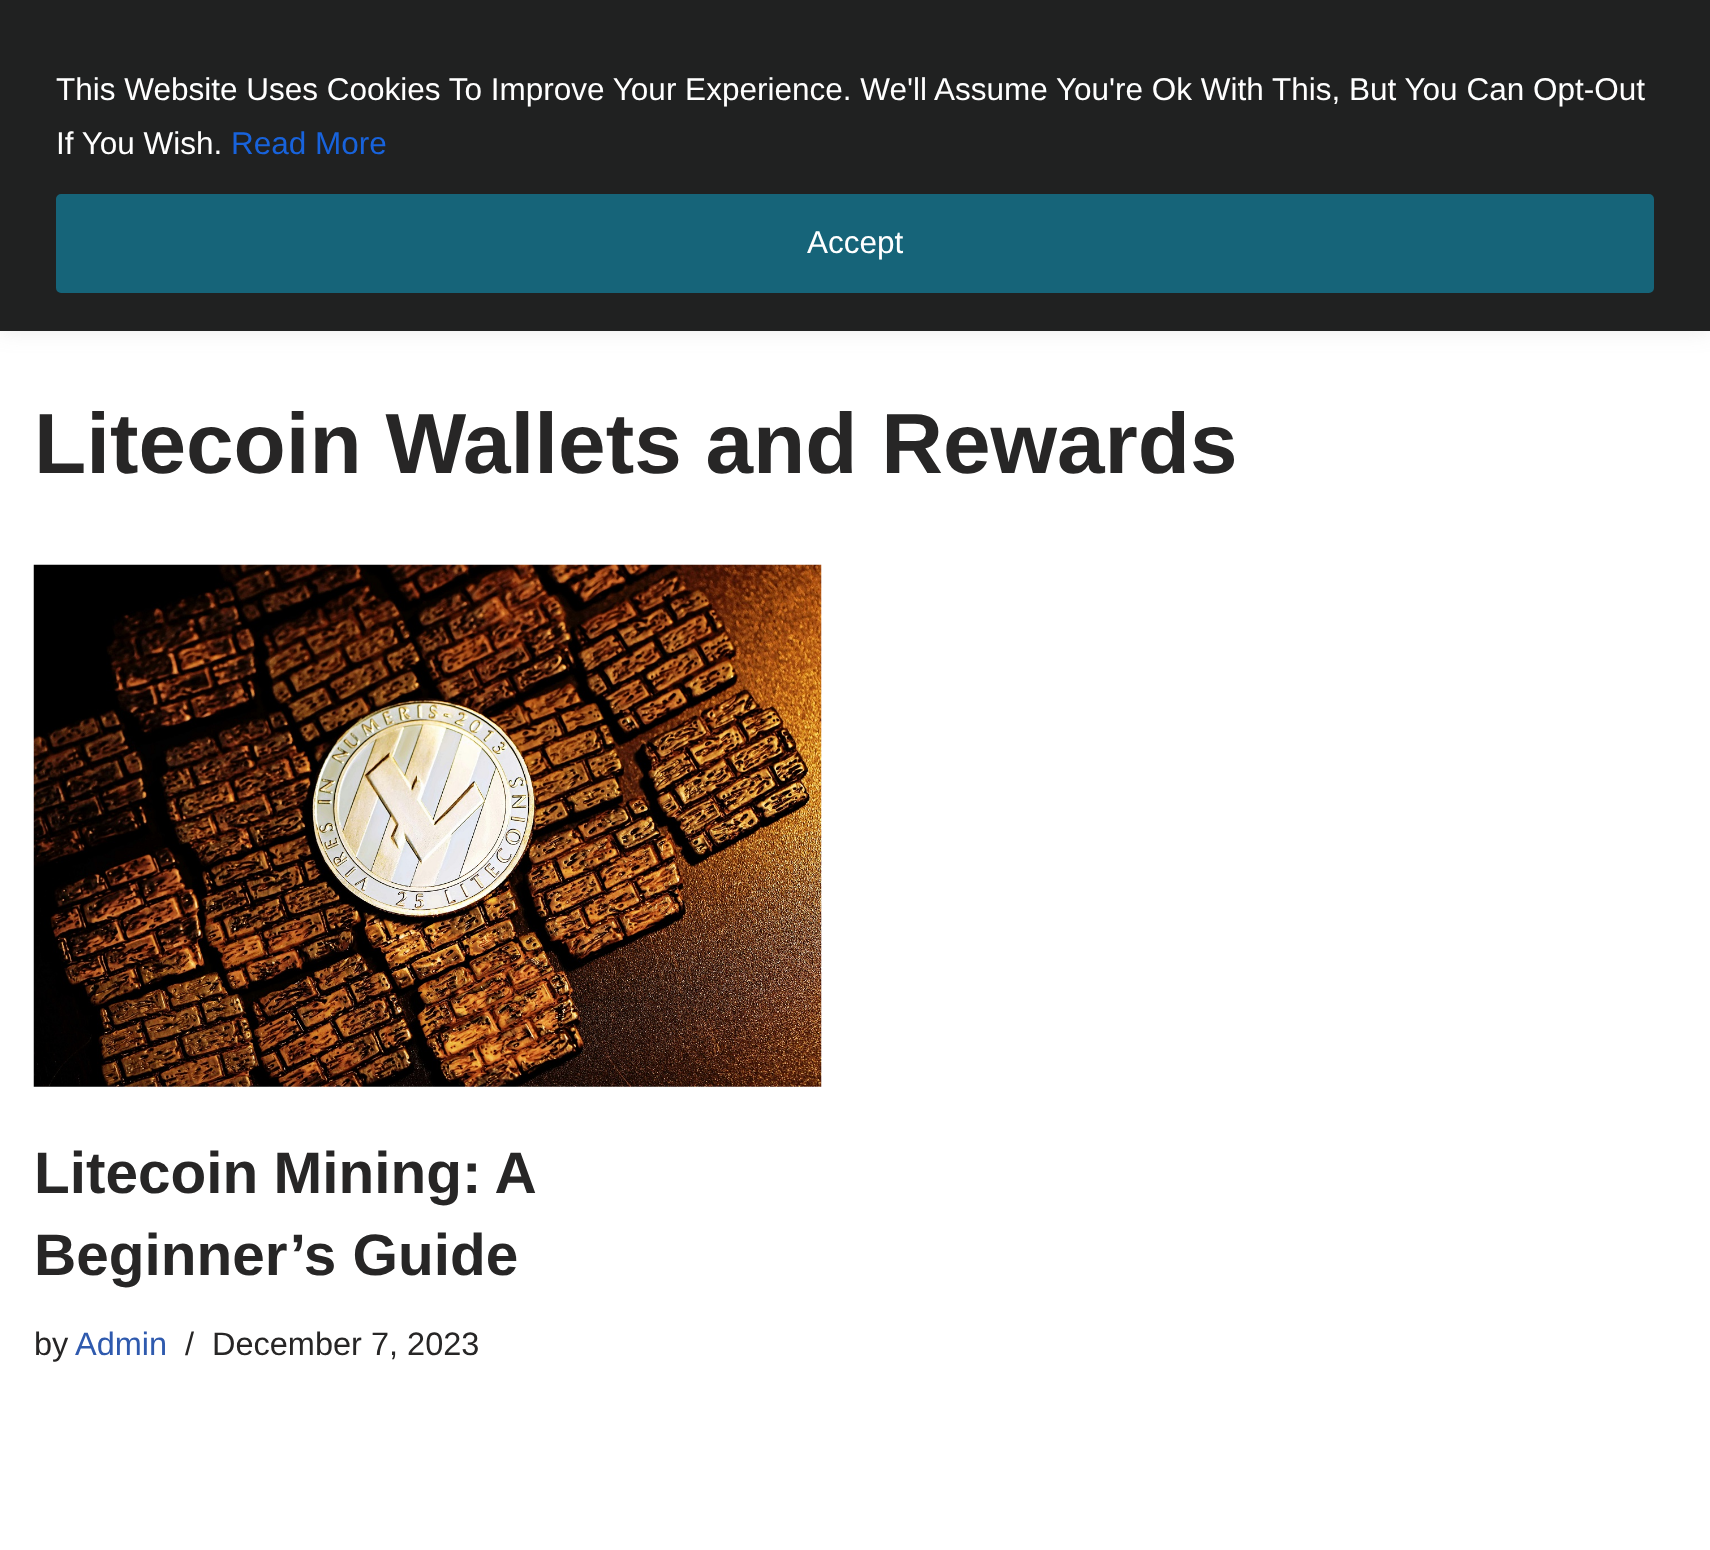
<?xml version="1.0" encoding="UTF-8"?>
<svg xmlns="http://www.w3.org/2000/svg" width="1710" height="1550">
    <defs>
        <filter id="blur1" x="-50%" y="-200%" width="200%" height="500%"><feGaussianBlur stdDeviation="11"/></filter>
    </defs>
    <rect width="100%" height="100%" fill="#FFFFFF"/>
    <rect x="0" y="-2" width="1710" height="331" fill="#ACABAB" fill-opacity="0.3" filter="url(#blur1)"/>
    <rect x="0" y="0" width="1710" height="331" fill="#202121"/>
    <text font-family="Liberation Sans" font-size="31.5" fill="#FFFFFF">
        <tspan x="56" y="100">This Website Uses Cookies To Improve Your Experience. We'll Assume You're Ok With This, But You Can Opt-Out</tspan>
        <tspan x="56" y="154">If You Wish.</tspan>
    </text>
    <text x="231" y="154" font-family="Liberation Sans" font-size="31.5" fill="#1863DC">Read More</text>
    <rect x="58.5" y="196.5" width="1593" height="94" rx="2.5" fill="#166479" stroke="#166479" stroke-width="5"/>
    <text x="807" y="253" font-family="Liberation Sans" font-size="31.5" fill="#FFFFFF">Accept</text>
    <text x="34" y="473" font-family="Liberation Sans" font-size="85.5" font-weight="700" fill="#272626">Litecoin Wallets and Rewards</text>
    <image x="33" y="564" width="789" height="523" href="img_01.png"/>
    <text font-family="Liberation Sans" font-size="58.5" font-weight="700" fill="#272626">
        <tspan x="34" y="1193" word-spacing="-1">Litecoin Mining: A</tspan>
        <tspan x="34" y="1275">Beginner’s Guide</tspan>
    </text>
    <text x="34" y="1355" font-family="Liberation Sans" font-size="32.5" fill="#272626">by</text>
    <text x="75" y="1355" font-family="Liberation Sans" font-size="32.5" fill="#2F5AAE">Admin</text>
    <text x="185" y="1355" font-family="Liberation Sans" font-size="32.5" fill="#272626">/</text>
    <text x="212" y="1355" font-family="Liberation Sans" font-size="32.5" fill="#272626">December 7, 2023</text>
</svg>
